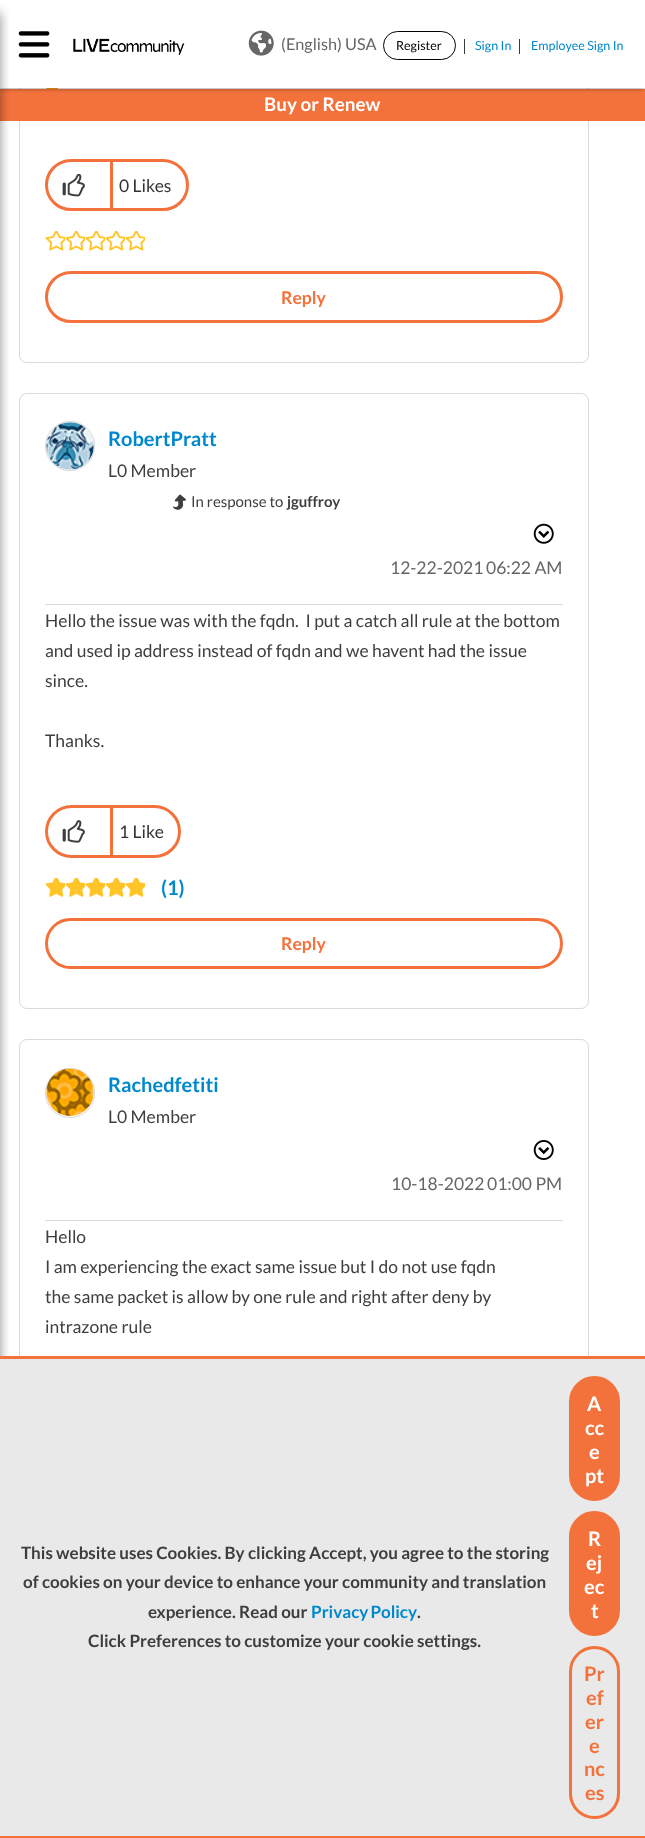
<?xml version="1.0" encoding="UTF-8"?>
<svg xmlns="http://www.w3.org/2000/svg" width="645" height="1838">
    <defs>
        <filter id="blur1" x="-50%" y="-200%" width="200%" height="500%"><feGaussianBlur stdDeviation="2"/></filter>
        <filter id="blur2" x="-50%" y="-200%" width="200%" height="500%"><feGaussianBlur stdDeviation="6"/></filter>
        <clipPath id="clip1"><path d="M 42 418 H 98 V 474 H 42 Z M 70 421 C 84 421 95 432 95 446 C 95 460 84 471 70 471 C 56 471 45 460 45 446 C 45 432 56 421 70 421 Z" clip-rule="evenodd"/></clipPath>
        <filter id="blur3" x="-50%" y="-200%" width="200%" height="500%"><feGaussianBlur stdDeviation="0.5"/></filter>
        <clipPath id="clip2"><path d="M 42 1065 H 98 V 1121 H 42 Z M 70 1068 C 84 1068 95 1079 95 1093 C 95 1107 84 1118 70 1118 C 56 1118 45 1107 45 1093 C 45 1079 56 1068 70 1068 Z" clip-rule="evenodd"/></clipPath>
    </defs>
    <rect width="100%" height="100%" fill="#FFFFFF"/>
    <rect x="19.5" y="-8.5" width="569" height="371" rx="7.5" fill="none" stroke="#DADADA"/>
    <rect x="0" y="89" width="645" height="32" fill="#F3723C"/>
    <image x="46" y="88" width="13" height="1" href="img_04.png"/>
    <rect x="0" y="1" width="645" height="88" fill="#000000" fill-opacity="0.36" filter="url(#blur1)"/>
    <rect x="0" y="0" width="645" height="88" fill="#FFFFFF"/>
    <image x="18" y="31" width="32" height="27" href="img_01.png"/>
    <rect x="-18" y="13" width="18" height="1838" fill="#000000" fill-opacity="0.45" filter="url(#blur2)"/>
    <image x="73" y="38" width="112" height="17" href="img_02.png"/>
    <image x="248" y="30" width="26" height="26" href="img_03.png"/>
    <text x="281" y="50" font-family="Lato" font-size="16.25" fill="#666666">(English) USA</text>
    <rect x="383.5" y="31.5" width="72" height="28" rx="14" fill="none" stroke="#000000"/>
    <text x="396" y="50" font-family="Lato" font-size="12.5" fill="#000000">Register</text>
    <rect x="464" y="39" width="1" height="15" fill="#3A3A3C"/>
    <text x="475" y="50" font-family="Lato" font-size="12.5" fill="#0088CC">Sign In</text>
    <rect x="519" y="39" width="1" height="15" fill="#3A3A3C"/>
    <text x="531" y="50" font-family="Lato" font-size="12.5" fill="#0088CC">Employee Sign In</text>
    <text x="264" y="111" font-family="Lato" font-size="18.75" font-weight="700" fill="#FFFFFF">Buy or Renew</text>
    <rect x="46.5" y="160.5" width="141" height="49" rx="24.5" fill="none" stroke="#F3723C" stroke-width="3"/>
    <rect x="110" y="161" width="3" height="48" fill="#F3723C"/>
    <image x="62" y="173" width="23" height="24" href="img_05.png"/>
    <text x="119" y="192" font-family="Lato" font-size="17.5" fill="#333333">0 Likes</text>
    <image x="45" y="231" width="10" height="20" href="img_06.png"/>
    <image x="55" y="231" width="10" height="20" href="img_07.png"/>
    <image x="65" y="231" width="10" height="20" href="img_06.png"/>
    <image x="75" y="231" width="10" height="20" href="img_07.png"/>
    <image x="85" y="231" width="10" height="20" href="img_06.png"/>
    <image x="95" y="231" width="10" height="20" href="img_07.png"/>
    <image x="105" y="231" width="10" height="20" href="img_06.png"/>
    <image x="115" y="231" width="10" height="20" href="img_07.png"/>
    <image x="125" y="231" width="10" height="20" href="img_06.png"/>
    <image x="135" y="231" width="10" height="20" href="img_07.png"/>
    <rect x="46.5" y="272.5" width="515" height="49" rx="24.5" fill="none" stroke="#F3723C" stroke-width="3"/>
    <text x="281" y="304" font-family="Lato" font-size="17.5" font-weight="700" fill="#F3723C">Reply</text>
    <rect x="19.5" y="393.5" width="569" height="615" rx="7.5" fill="none" stroke="#DADADA"/>
    <rect x="45" y="604" width="518" height="1" fill="#DCDCDC"/>
    <g clip-path="url(#clip1)">
        <rect x="45" y="421" width="50" height="50" rx="25" fill="#C4C4C4" filter="url(#blur3)"/>
    </g>
    <circle cx="70" cy="446" r="24.5" fill="none" stroke="#DADADA"/>
    <image x="46" y="422" width="48" height="48" href="img_08.png"/>
    <text x="108" y="446" font-family="Lato" font-size="20" font-weight="700" fill="#0088CC">RobertPratt</text>
    <text x="108" y="477" font-family="Lato" font-size="17.5" fill="#3E3E3E">L0 Member</text>
    <image x="173" y="494" width="13" height="16" href="img_09.png"/>
    <text x="191" y="507" font-family="Lato" font-size="15" fill="#3E3E3E">In response to</text>
    <text x="287" y="507" font-family="Lato" font-size="15" font-weight="700" fill="#3E3E3E">jguffroy</text>
    <image x="533" y="523" width="21" height="21" href="img_10.png"/>
    <text x="390" y="574" font-family="Lato" font-size="17.5" fill="#666666">12-22-2021</text>
    <text x="486" y="574" font-family="Lato" font-size="17.5" fill="#666666">06:22 AM</text>
    <text font-family="Lato" font-size="17.5" fill="#3E3E3E" xml:space="preserve"><tspan x="45" y="627">Hello the issue was with the fqdn.  I put a catch all rule at the bottom</tspan><tspan x="45" y="657">and used ip address instead of fqdn and we havent had the issue</tspan><tspan x="45" y="687">since.</tspan></text>
    <text x="45" y="747" font-family="Lato" font-size="17.5" fill="#3E3E3E">Thanks.</text>
    <rect x="46.5" y="806.5" width="133" height="50" rx="25" fill="none" stroke="#F3723C" stroke-width="3"/>
    <rect x="110" y="808" width="3" height="47" fill="#F3723C"/>
    <image x="62" y="820" width="23" height="23" href="img_11.png"/>
    <text x="119" y="838" font-family="Lato" font-size="17.5" fill="#333333">1 Like</text>
    <image x="45" y="878" width="10" height="19" href="img_12.png"/>
    <image x="55" y="878" width="10" height="19" href="img_13.png"/>
    <image x="65" y="878" width="10" height="19" href="img_12.png"/>
    <image x="75" y="878" width="10" height="19" href="img_13.png"/>
    <image x="85" y="878" width="10" height="19" href="img_12.png"/>
    <image x="95" y="878" width="10" height="19" href="img_13.png"/>
    <image x="105" y="878" width="10" height="19" href="img_12.png"/>
    <image x="115" y="878" width="10" height="19" href="img_13.png"/>
    <image x="125" y="878" width="10" height="19" href="img_12.png"/>
    <image x="135" y="878" width="10" height="19" href="img_13.png"/>
    <text x="161" y="895" font-family="Lato" font-size="20" font-weight="700" fill="#0088CC">(1)</text>
    <rect x="46.5" y="919.5" width="515" height="48" rx="24" fill="none" stroke="#F3723C" stroke-width="3"/>
    <text x="281" y="950" font-family="Lato" font-size="17.5" font-weight="700" fill="#F3723C">Reply</text>
    <rect x="19.5" y="1039.5" width="569" height="585" rx="7.5" fill="none" stroke="#DADADA"/>
    <rect x="45" y="1220" width="518" height="1" fill="#DCDCDC"/>
    <g clip-path="url(#clip2)">
        <rect x="45" y="1068" width="50" height="50" rx="25" fill="#C4C4C4" filter="url(#blur3)"/>
    </g>
    <circle cx="70" cy="1093" r="24.5" fill="none" stroke="#DADADA"/>
    <image x="46" y="1068" width="48" height="48" href="img_14.png"/>
    <text x="108" y="1092" font-family="Lato" font-size="20" font-weight="700" fill="#0088CC">Rachedfetiti</text>
    <text x="108" y="1123" font-family="Lato" font-size="17.5" fill="#3E3E3E">L0 Member</text>
    <image x="533" y="1140" width="21" height="20" href="img_15.png"/>
    <text x="391" y="1190" font-family="Lato" font-size="17.5" fill="#666666">10-18-2022</text>
    <text x="487" y="1190" font-family="Lato" font-size="17.5" fill="#666666">01:00 PM</text>
    <text font-family="Lato" font-size="17.5" fill="#3E3E3E">
        <tspan x="45" y="1243">Hello</tspan>
        <tspan x="45" y="1273">I am experiencing the exact same issue but I do not use fqdn</tspan>
        <tspan x="45" y="1303">the same packet is allow by one rule and right after deny by</tspan>
        <tspan x="45" y="1333">intrazone rule</tspan>
    </text>
    <rect x="0" y="1359" width="645" height="477" fill="#E9E9E9"/>
    <rect x="0" y="1356" width="645" height="3" fill="#F3723C"/>
    <rect x="0" y="1836" width="645" height="2" fill="#F3723C"/>
    <text x="21" y="1559" font-family="Lato" font-size="17" font-weight="700" fill="#3E3E3E">This website uses Cookies. By clicking Accept, you agree to the storing</text>
    <text x="23" y="1588" font-family="Lato" font-size="17" font-weight="700" fill="#3E3E3E">of cookies on your device to enhance your community and translation</text>
    <text x="148" y="1618" font-family="Lato" font-size="17" font-weight="700" fill="#3E3E3E">experience. Read our</text>
    <text x="311" y="1618" word-spacing="-1" font-family="Lato" font-size="17" font-weight="700" fill="#0088CC">Privacy Policy</text>
    <text x="417" y="1618" font-family="Lato" font-size="17" font-weight="700" fill="#3E3E3E">.</text>
    <text x="88" y="1647" font-family="Lato" font-size="17" font-weight="700" fill="#3E3E3E">Click Preferences to customize your cookie settings.</text>
    <rect x="570.5" y="1377.5" width="48" height="122" rx="24" fill="#F3723C" stroke="#F3723C" stroke-width="3"/>
    <text x="587" y="1411" font-family="Lato" font-size="20" font-weight="700" fill="#FFFFFF">A</text>
    <text x="585" y="1435" font-family="Lato" font-size="20" font-weight="700" fill="#FFFFFF">cc</text>
    <text x="589" y="1459" font-family="Lato" font-size="20" font-weight="700" fill="#FFFFFF">e</text>
    <text x="585" y="1483" font-family="Lato" font-size="20" font-weight="700" fill="#FFFFFF">pt</text>
    <rect x="570.5" y="1512.5" width="48" height="122" rx="24" fill="#F3723C" stroke="#F3723C" stroke-width="3"/>
    <text x="588" y="1546" font-family="Lato" font-size="20" font-weight="700" fill="#FFFFFF">R</text>
    <text x="586" y="1570" font-family="Lato" font-size="20" font-weight="700" fill="#FFFFFF">ej</text>
    <text x="584" y="1594" font-family="Lato" font-size="20" font-weight="700" fill="#FFFFFF">ec</text>
    <text x="591" y="1618" font-family="Lato" font-size="20" font-weight="700" fill="#FFFFFF">t</text>
    <rect x="570.5" y="1647.5" width="48" height="170" rx="24" fill="none" stroke="#F3723C" stroke-width="3"/>
    <text x="584" y="1681" font-family="Lato" font-size="20" font-weight="700" fill="#F3723C">Pr</text>
    <text x="586" y="1705" font-family="Lato" font-size="20" font-weight="700" fill="#F3723C">ef</text>
    <text x="585" y="1729" font-family="Lato" font-size="20" font-weight="700" fill="#F3723C">er</text>
    <text x="589" y="1753" font-family="Lato" font-size="20" font-weight="700" fill="#F3723C">e</text>
    <text x="584" y="1776" font-family="Lato" font-size="20" font-weight="700" fill="#F3723C">nc</text>
    <text x="585" y="1800" font-family="Lato" font-size="20" font-weight="700" fill="#F3723C">es</text>
</svg>
